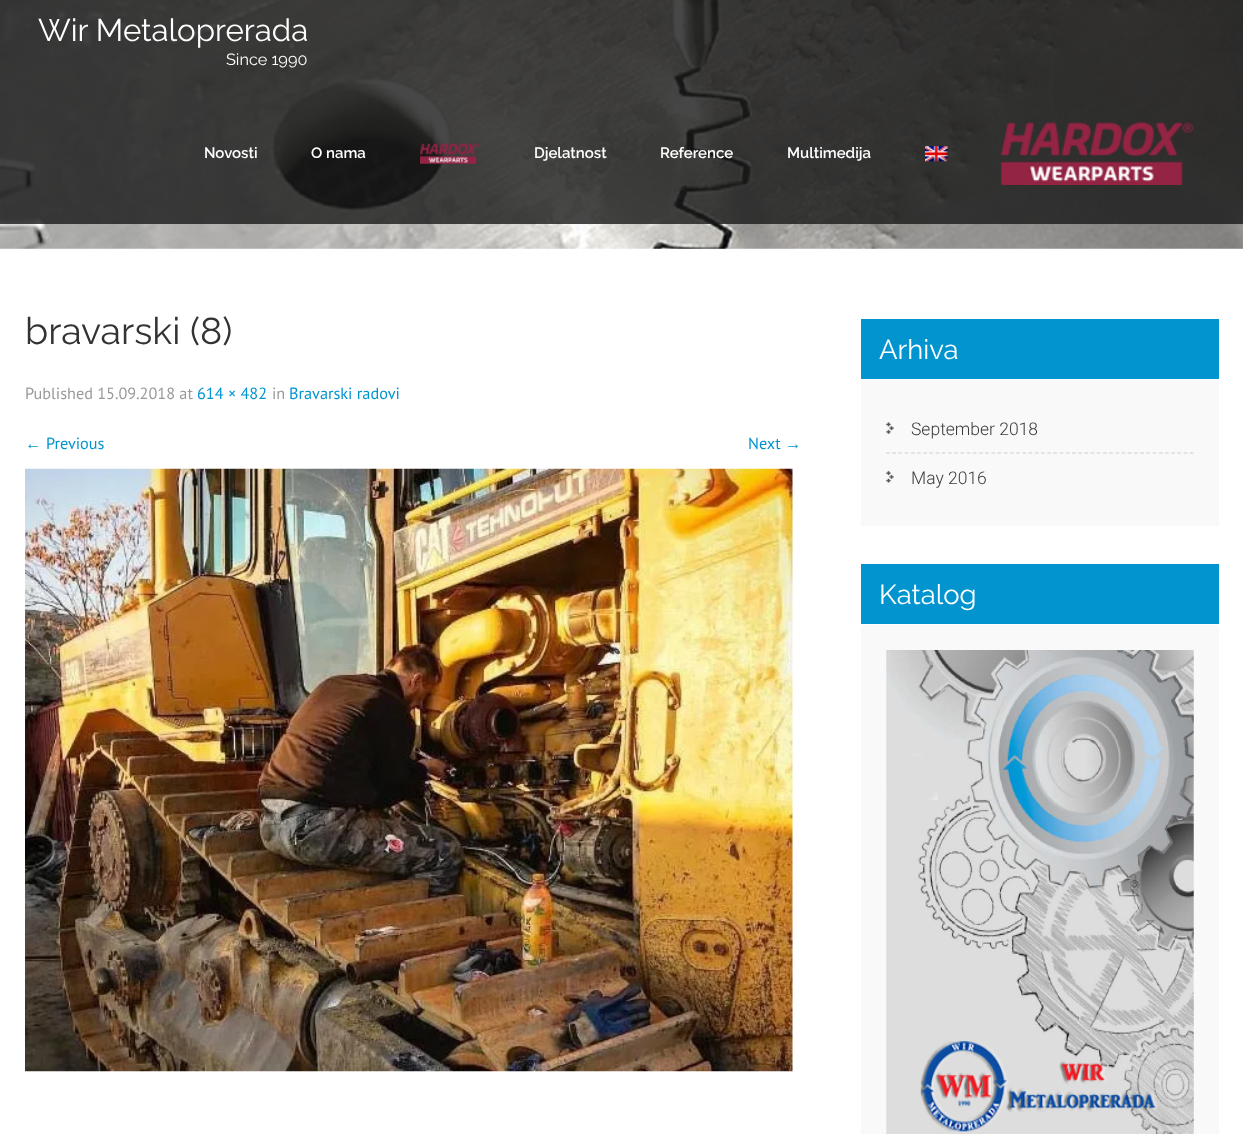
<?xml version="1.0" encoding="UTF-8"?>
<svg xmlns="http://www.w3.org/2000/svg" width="1243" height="1134">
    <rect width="100%" height="100%" fill="#FFFFFF"/>
    <image x="0" y="0" width="1243" height="249" href="img_01.png"/>
    <rect x="0" y="0" width="1243" height="224" fill="#191919" fill-opacity="0.8"/>
    <text x="38" y="41" font-family="Raleway" font-size="31.25" font-weight="100" fill="#FFFFFF">Wir Metaloprerada</text>
    <text x="226" y="65" font-family="Raleway" font-size="16.25" font-weight="100" fill="#FFFFFF">Since 1990</text>
    <text x="204" y="158" font-family="Raleway" font-size="15" font-weight="600" fill="#FFFFFF">Novosti</text>
    <text x="311" y="158" font-family="Raleway" font-size="15" font-weight="600" fill="#FFFFFF">O nama</text>
    <image x="420" y="143" width="60" height="21" href="img_02.png"/>
    <text x="534" y="158" font-family="Raleway" font-size="15" font-weight="600" fill="#FFFFFF">Djelatnost</text>
    <text x="660" y="158" font-family="Raleway" font-size="15" font-weight="600" fill="#FFFFFF">Reference</text>
    <text x="787" y="158" font-family="Raleway" font-size="15" font-weight="600" fill="#FFFFFF">Multimedija</text>
    <image x="925" y="146" width="23" height="16" href="img_03.png"/>
    <image x="1001" y="122" width="193" height="63" href="img_04.png"/>
    <text x="25" y="344" font-family="Raleway" font-size="37.5" font-weight="100" fill="#333333">bravarski (8)</text>
    <text x="25" y="399" font-family="PT Sans" font-size="16.25" fill="#999999">Published 15.09.2018 at</text>
    <text x="197" y="399" font-family="PT Sans" font-size="16.25" fill="#0294CF">614 × 482</text>
    <text x="272" y="399" font-family="PT Sans" font-size="16.25" fill="#999999">in</text>
    <text x="289" y="399" font-family="PT Sans" font-size="16.25" fill="#0294CF">Bravarski radovi</text>
    <text x="25" y="449" font-family="Liberation Sans" font-size="16.25" fill="#0294CF">←</text>
    <text x="46" y="449" font-family="PT Sans" font-size="16.25" fill="#0294CF">Previous</text>
    <text x="748" y="449" font-family="PT Sans" font-size="16.25" fill="#0294CF">Next</text>
    <text x="785" y="449" font-family="Liberation Sans" font-size="16.25" fill="#0294CF">→</text>
    <image x="25" y="468" width="768" height="604" href="img_05.png"/>
    <rect x="861" y="319" width="358" height="60" fill="#0294CF"/>
    <text x="879" y="359" font-family="Raleway" font-size="27.5" font-weight="100" fill="#FFFFFF">Arhiva</text>
    <rect x="861" y="380" width="358" height="146" fill="#F9F9F9"/>
    <image x="886" y="422" width="8" height="12" href="img_06.png"/>
    <path d="M 886 453 H 1194" fill="none" stroke="#D0CFCF" stroke-width="1.2" stroke-dasharray="3.75 2.45"/>
    <text x="911" y="435" font-family="Roboto" font-size="17.5" font-weight="300" fill="#3B3B3B">September 2018</text>
    <image x="886" y="471" width="8" height="12" href="img_07.png"/>
    <text x="911" y="484" font-family="Roboto" font-size="17.5" font-weight="300" fill="#3B3B3B">May 2016</text>
    <rect x="861" y="564" width="358" height="60" fill="#0294CF"/>
    <text x="879" y="604" font-family="Raleway" font-size="27.5" font-weight="100" fill="#FFFFFF">Katalog</text>
    <rect x="861" y="625" width="358" height="509" fill="#F9F9F9"/>
    <image x="886" y="650" width="308" height="484" href="img_08.png"/>
</svg>
